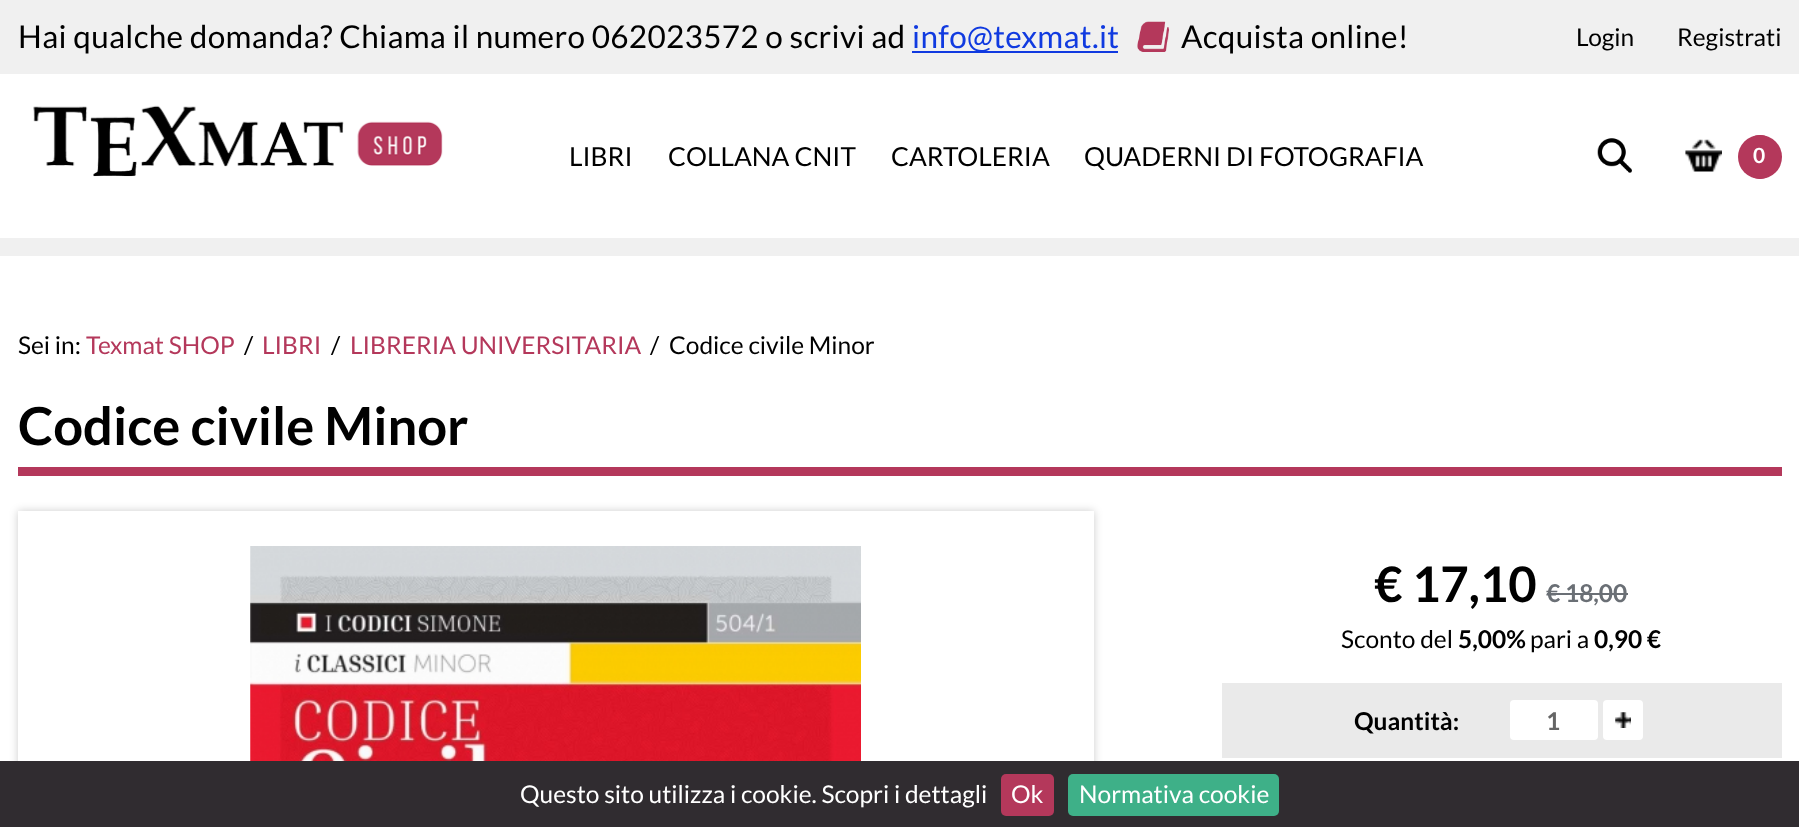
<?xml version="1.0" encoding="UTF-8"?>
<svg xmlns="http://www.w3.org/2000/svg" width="1799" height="827">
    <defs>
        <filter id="blur1" x="-50%" y="-200%" width="200%" height="500%"><feGaussianBlur stdDeviation="4.5"/></filter>
    </defs>
    <rect width="100%" height="100%" fill="#FFFFFF"/>
    <rect x="0" y="0" width="1799" height="74" fill="#F0F0F0"/>
    <text x="18" y="48" font-family="Lato" font-size="31.5" letter-spacing="0.32" fill="#000000">Hai qualche domanda? Chiama il numero 062023572 o scrivi ad</text>
    <rect x="912" y="51" width="206" height="2" fill="#103AE0"/>
    <text x="912" y="48" font-family="Lato" font-size="31.5" letter-spacing="0.32" fill="#103AE0">info@texmat.it</text>
    <image x="1137" y="21" width="32" height="31" href="img_01.png"/>
    <text x="1181" y="48" font-family="Lato" font-size="31.5" letter-spacing="0.32" fill="#000000">Acquista online!</text>
    <text x="1576" y="46" font-family="Lato" font-size="24.5" fill="#000000">Login</text>
    <text x="1677" y="46" font-family="Lato" font-size="24.5" fill="#000000">Registrati</text>
    <rect x="0" y="238" width="1799" height="18" fill="#F0F0F0"/>
    <image x="33" y="105" width="410" height="72" href="img_02.png"/>
    <text x="569" y="166" font-family="Lato" font-size="26.25" fill="#000000">LIBRI</text>
    <text x="668" y="166" font-family="Lato" font-size="26.25" fill="#000000">COLLANA CNIT</text>
    <text x="891" y="166" font-family="Lato" font-size="26.25" fill="#000000">CARTOLERIA</text>
    <text x="1084" y="166" font-family="Lato" font-size="26.25" fill="#000000">QUADERNI DI FOTOGRAFIA</text>
    <image x="1597" y="138" width="35" height="35" href="img_03.png"/>
    <image x="1685" y="139" width="37" height="33" href="img_04.png"/>
    <circle cx="1760" cy="157" r="22" fill="#B4385B"/>
    <rect x="1745" y="135" width="30" height="44" rx="15" fill="#B4385B"/>
    <text x="1753" y="163" font-family="Lato" font-size="21" font-weight="700" fill="#FFFFFF">0</text>
    <text x="18" y="354" font-family="Lato" font-size="24.5" fill="#000000">Sei in:</text>
    <text x="86" y="354" font-family="Lato" font-size="24.5" fill="#B4385B">Texmat SHOP</text>
    <text x="244" y="354" font-family="Lato" font-size="24.5" fill="#000000">/</text>
    <text x="262" y="354" font-family="Lato" font-size="24.5" fill="#B4385B">LIBRI</text>
    <text x="331" y="354" font-family="Lato" font-size="24.5" fill="#000000">/</text>
    <text x="350" y="354" font-family="Lato" font-size="24.5" fill="#B4385B">LIBRERIA UNIVERSITARIA</text>
    <text x="650" y="354" font-family="Lato" font-size="24.5" fill="#000000">/</text>
    <text x="669" y="354" font-family="Lato" font-size="24.5" fill="#000000">Codice civile Minor</text>
    <rect x="18" y="467" width="1764" height="9" fill="#B4385B"/>
    <text x="18" y="445" font-family="Lato" font-size="52.5" font-weight="700" fill="#000000">Codice civile Minor</text>
    <rect x="18" y="511" width="1076" height="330" fill="#000000" fill-opacity="0.2" filter="url(#blur1)"/>
    <rect x="18" y="511" width="1076" height="250" fill="#FFFFFF"/>
    <image x="250" y="546" width="611" height="215" href="img_05.png"/>
    <text x="1374" y="602" font-family="Lato" font-size="49" font-weight="700" fill="#000000">€ 17,10</text>
    <text x="1546" y="602" font-family="Lato" font-size="24.5" font-weight="700" fill="#6A6F75">€ 18,00</text>
    <rect x="1547" y="593" width="81" height="2" fill="#6A6F75"/>
    <text x="1341" y="648" font-family="Lato" font-size="24.5" fill="#000000">Sconto del</text>
    <text x="1458" y="648" font-family="Lato" font-size="24.5" font-weight="700" fill="#000000">5,00%</text>
    <text x="1530" y="648" font-family="Lato" font-size="24.5" fill="#000000">pari a</text>
    <text x="1594" y="648" font-family="Lato" font-size="24.5" font-weight="700" fill="#000000">0,90 €</text>
    <rect x="1222" y="683" width="560" height="75" fill="#EAEAEA"/>
    <text x="1354" y="730" font-family="Lato" font-size="24.5" font-weight="700" fill="#000000">Quantità:</text>
    <rect x="1510" y="700" width="88" height="40" rx="4" fill="#FFFFFF"/>
    <text x="1546" y="730" font-family="Lato" font-size="24.5" font-weight="700" fill="#656565">1</text>
    <rect x="1603" y="700" width="40" height="40" rx="4" fill="#FFFFFF"/>
    <image x="1615" y="712" width="16" height="16" href="img_06.png"/>
    <rect x="0" y="761" width="1799" height="66" fill="#302C30"/>
    <text x="520" y="803" font-family="Lato" font-size="24.5" fill="#FFFFFF">Questo sito utilizza i cookie. Scopri i dettagli</text>
    <rect x="1001" y="774" width="53" height="42" rx="5" fill="#B4385B"/>
    <text x="1011" y="803" font-family="Lato" font-size="24.5" fill="#FFFFFF">Ok</text>
    <rect x="1068" y="774" width="211" height="42" rx="5" fill="#3EB088"/>
    <text x="1079" y="803" font-family="Lato" font-size="24.5" fill="#FFFFFF">Normativa cookie</text>
</svg>
